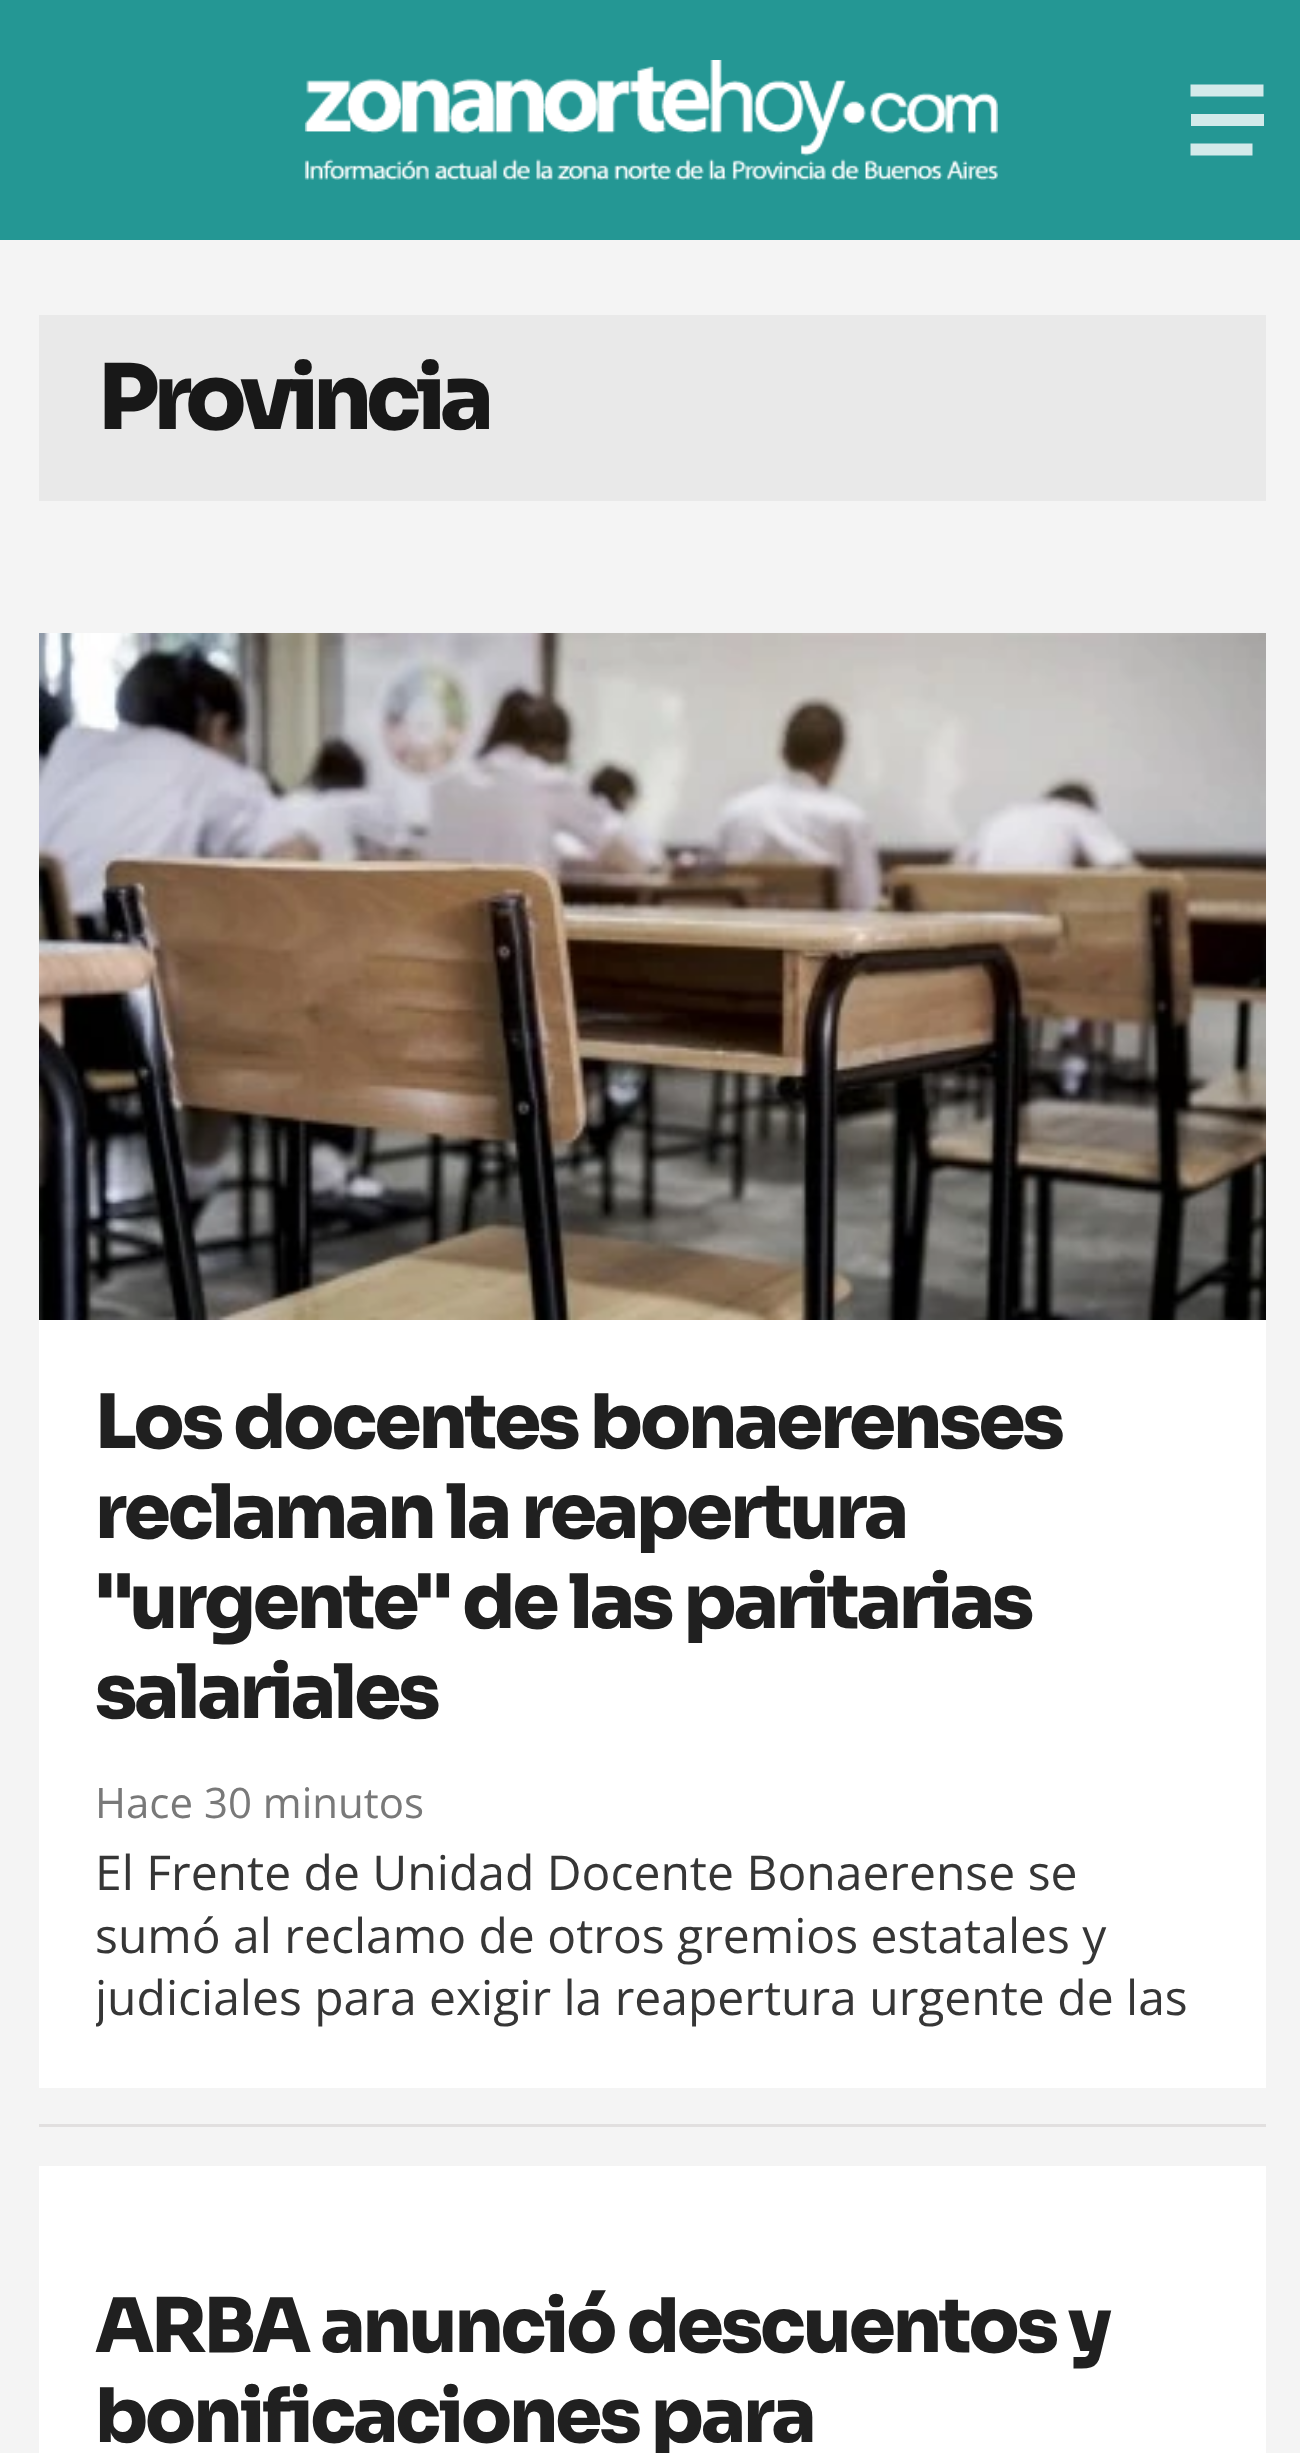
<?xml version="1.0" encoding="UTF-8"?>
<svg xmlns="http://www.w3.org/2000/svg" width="1300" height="2453">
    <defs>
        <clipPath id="clip1"><rect x="96" y="1842" width="1110" height="186"/></clipPath>
    </defs>
    <rect width="100%" height="100%" fill="#F4F4F4"/>
    <rect x="0" y="0" width="1300" height="240" fill="#249794"/>
    <image x="304" y="60" width="694" height="120" href="img_01.png"/>
    <path d="M 1263.5 90.5 H 1190.5" fill="none" stroke="#D3EAEA" stroke-width="12.1"/>
    <rect x="1191" y="114" width="73" height="12" fill="#D3EAEA"/>
    <path d="M 1252.5 149.5 H 1190.5" fill="none" stroke="#D3EAEA" stroke-width="12.1"/>
    <rect x="39" y="315" width="1227" height="186" fill="#E9E9E9"/>
    <text x="98" y="429" font-family="Sora" font-size="90" font-weight="800" letter-spacing="-6" fill="#181818">Provincia</text>
    <rect x="39" y="1320" width="1227" height="768" fill="#FFFFFF"/>
    <image x="39" y="633" width="1227" height="687" href="img_02.png"/>
    <text font-family="Sora" font-size="75" font-weight="800" letter-spacing="-3" fill="#202020">
        <tspan x="95" y="1448">Los docentes bonaerenses</tspan>
        <tspan x="95" y="1538">reclaman la reapertura</tspan>
        <tspan x="95" y="1628">"urgente" de las paritarias</tspan>
        <tspan x="95" y="1718">salariales</tspan>
    </text>
    <text x="95" y="1818" font-family="Open Sans" font-size="42" fill="#797979">Hace 30 minutos</text>
    <text font-family="Open Sans" font-size="48" fill="#363636">
        <tspan x="95" y="1890">El Frente de Unidad Docente Bonaerense se</tspan>
        <tspan x="95" y="1953">sumó al reclamo de otros gremios estatales y</tspan>
    </text>
    <g clip-path="url(#clip1)">
        <text x="95" y="2015" font-family="Open Sans" font-size="48" fill="#363636">judiciales para exigir la reapertura urgente de las</text>
    </g>
    <rect x="39" y="2124" width="1227" height="3" fill="#E1DFDF"/>
    <rect x="39" y="2166" width="1227" height="287" fill="#FFFFFF"/>
    <text font-family="Sora" font-size="75" font-weight="800" letter-spacing="-3" fill="#202020">
        <tspan x="95" y="2352">ARBA anunció descuentos y</tspan>
        <tspan x="95" y="2442">bonificaciones para</tspan>
    </text>
</svg>
